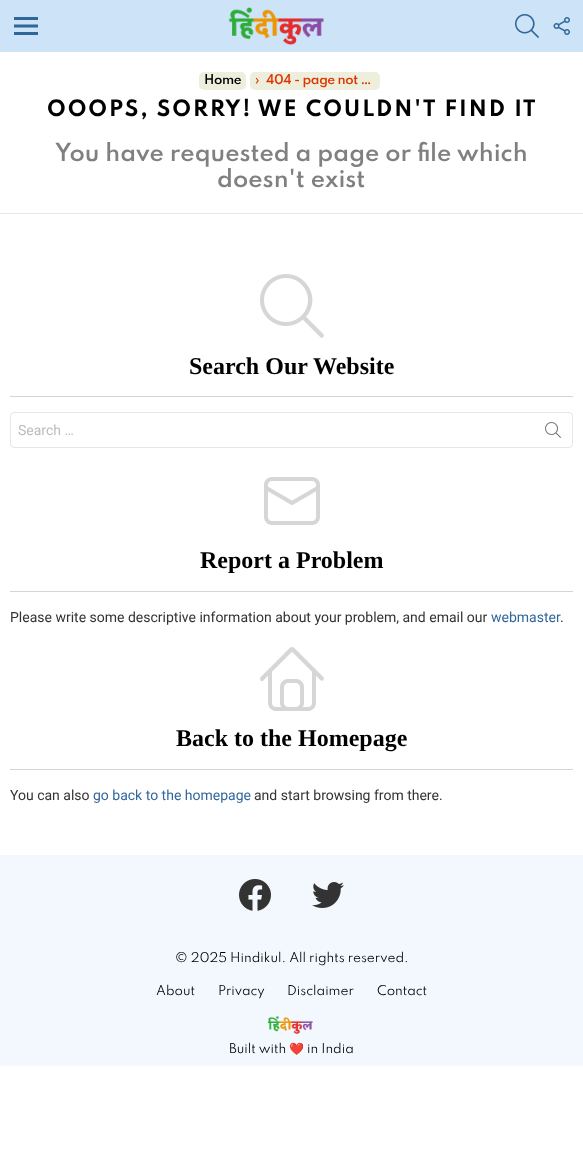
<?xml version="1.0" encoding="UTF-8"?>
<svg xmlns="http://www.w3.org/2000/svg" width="583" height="1164">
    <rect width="100%" height="100%" fill="#FFFFFF"/>
    <rect x="0" y="213" width="583" height="1" fill="#E6E6E6"/>
    <rect x="0" y="0" width="583" height="52" fill="#CDE3F8"/>
    <image x="14" y="17" width="24" height="18" href="img_01.png"/>
    <image x="228" y="7" width="96" height="38" href="img_02.png"/>
    <image x="515" y="14" width="24" height="24" href="img_03.png"/>
    <image x="553" y="17" width="17" height="18" href="img_04.png"/>
    <rect x="199" y="72" width="47" height="18" rx="5" fill="#EEEEDD"/>
    <text x="204" y="84" font-family="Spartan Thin" font-size="12" font-weight="600" letter-spacing="-0.4" fill="#000000">Home</text>
    <rect x="250" y="72" width="130" height="18" rx="5" fill="#EEEEDD"/>
    <text x="255" y="84" font-family="Spartan Thin" font-size="12" font-weight="600" letter-spacing="-0.4" fill="#DE3600">›</text>
    <text x="266" y="84" font-family="Spartan Thin" font-size="12" font-weight="600" letter-spacing="-0.4" fill="#DE3600">404 - page not …</text>
    <text x="47" y="116" font-family="Spartan Thin" font-size="20" font-weight="700" letter-spacing="1.95" fill="#000000">OOOPS, SORRY! WE COULDN'T FIND IT</text>
    <text x="55" y="161" font-family="Spartan Thin" font-size="22" font-weight="600" fill="#808080">You have requested a page or file which</text>
    <text x="217" y="187" font-family="Spartan Thin" font-size="22" font-weight="600" fill="#808080">doesn't exist</text>
    <image x="260" y="274" width="64" height="64" href="img_05.png"/>
    <text x="189" y="374" font-family="Liberation Serif" font-size="24" font-weight="700" fill="#000000">Search Our Website</text>
    <rect x="10" y="396" width="563" height="1" fill="#D4D4D4"/>
    <rect x="10.5" y="412.5" width="562" height="35" rx="3.5" fill="none" stroke="#E6E6E6"/>
    <text x="18" y="435" font-family="Roboto" font-size="14" fill="#BCBCBC">Search …</text>
    <image x="545" y="422" width="16" height="16" href="img_06.png"/>
    <image x="264" y="477" width="56" height="48" href="img_07.png"/>
    <text x="200" y="568" font-family="Liberation Serif" font-size="24" font-weight="700" fill="#000000">Report a Problem</text>
    <rect x="10" y="591" width="563" height="1" fill="#D4D4D4"/>
    <text x="10" y="622" font-family="Roboto" font-size="14" fill="#333333">Please write some descriptive information about your problem, and email our</text>
    <text x="491" y="622" font-family="Roboto" font-size="14" fill="#32679C">webmaster</text>
    <text x="560" y="622" font-family="Roboto" font-size="14" fill="#333333">.</text>
    <image x="260" y="647" width="64" height="64" href="img_08.png"/>
    <text x="176" y="746" font-family="Liberation Serif" font-size="24" font-weight="700" fill="#000000">Back to the Homepage</text>
    <rect x="10" y="769" width="563" height="1" fill="#D4D4D4"/>
    <text x="10" y="800" font-family="Roboto" font-size="14" fill="#333333">You can also</text>
    <text x="93" y="800" font-family="Roboto" font-size="14" fill="#32679C">go back to the homepage</text>
    <text x="254" y="800" font-family="Roboto" font-size="14" fill="#333333">and start browsing from there.</text>
    <rect x="0" y="855" width="583" height="211" fill="#F2F8FD"/>
    <image x="239" y="879" width="32" height="32" href="img_09.png"/>
    <image x="312" y="882" width="32" height="26" href="img_10.png"/>
    <text x="175" y="962" font-family="Spartan Thin" font-size="12" fill="#000000">© 2025 Hindikul. All rights reserved.</text>
    <text x="156" y="995" font-family="Spartan Thin" font-size="12" fill="#000000">About</text>
    <text x="218" y="995" font-family="Spartan Thin" font-size="12" fill="#000000">Privacy</text>
    <text x="287" y="995" font-family="Spartan Thin" font-size="12" fill="#000000">Disclaimer</text>
    <text x="377" y="995" font-family="Spartan Thin" font-size="12" fill="#000000">Contact</text>
    <image x="267" y="1016" width="46" height="18" href="img_11.png"/>
    <text x="229" y="1053" font-family="Spartan Thin" font-size="12" fill="#000000">Built with</text>
    <text x="289" y="1053" font-family="Noto Color Emoji" font-size="12" fill="#000000">❤️</text>
    <text x="307" y="1053" font-family="Spartan Thin" font-size="12" fill="#000000">in India</text>
</svg>
